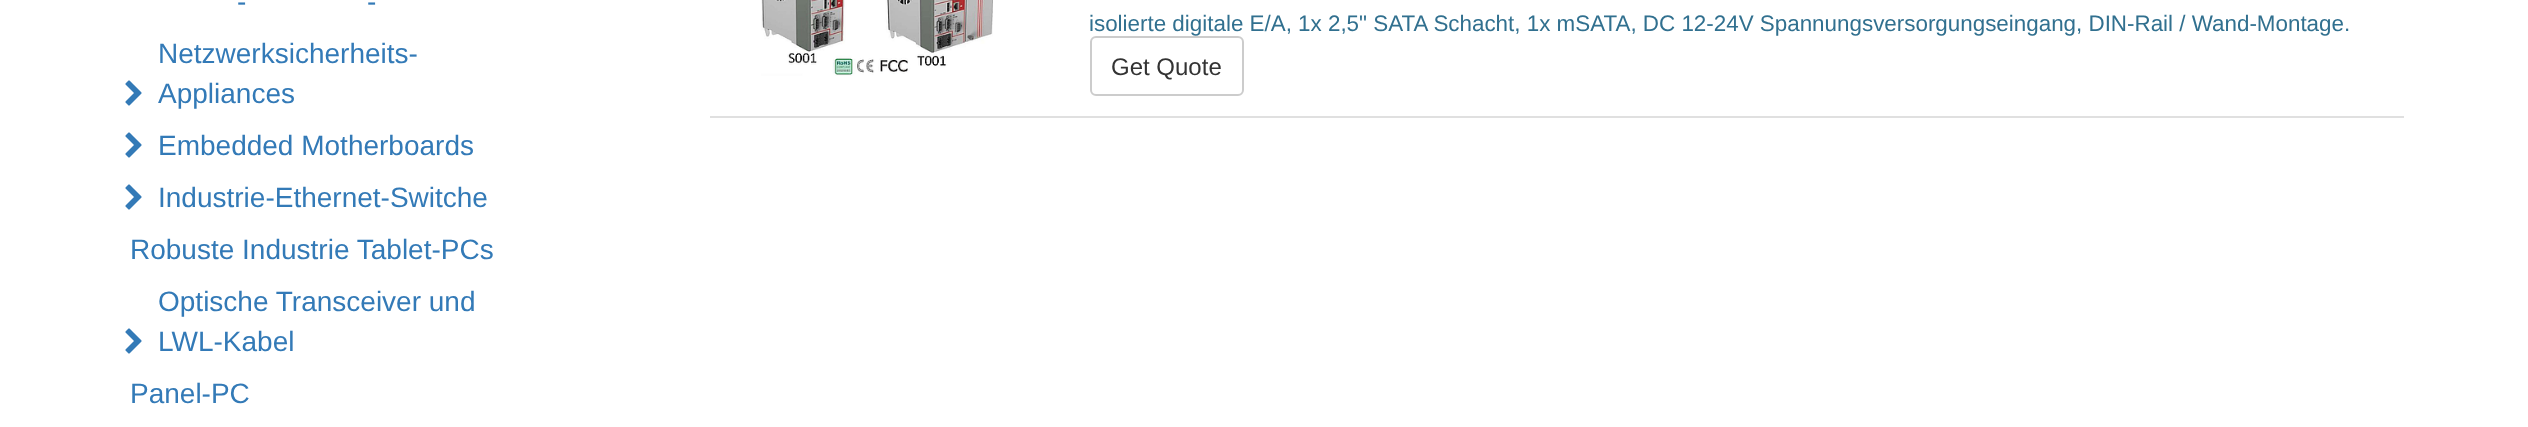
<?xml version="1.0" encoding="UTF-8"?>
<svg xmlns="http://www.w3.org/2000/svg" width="2528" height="427">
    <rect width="100%" height="100%" fill="#FFFFFF"/>
    <text x="237" y="11" font-family="Liberation Sans" font-size="28" fill="#337AB7">-</text>
    <text x="367" y="11" font-family="Liberation Sans" font-size="28" fill="#337AB7">-</text>
    <image x="125" y="80" width="17" height="26" href="img_01.png"/>
    <text font-family="Liberation Sans" font-size="28" fill="#337AB7">
        <tspan x="158" y="63">Netzwerksicherheits-</tspan>
        <tspan x="158" y="103">Appliances</tspan>
    </text>
    <image x="125" y="132" width="17" height="26" href="img_01.png"/>
    <text x="158" y="155" font-family="Liberation Sans" font-size="28" fill="#337AB7">Embedded Motherboards</text>
    <image x="125" y="184" width="17" height="26" href="img_01.png"/>
    <text x="158" y="207" font-family="Liberation Sans" font-size="28" fill="#337AB7">Industrie-Ethernet-Switche</text>
    <text x="130" y="259" font-family="Liberation Sans" font-size="28" fill="#337AB7">Robuste Industrie Tablet-PCs</text>
    <image x="125" y="328" width="17" height="26" href="img_01.png"/>
    <text font-family="Liberation Sans" font-size="28" fill="#337AB7">
        <tspan x="158" y="311">Optische Transceiver und</tspan>
        <tspan x="158" y="351">LWL-Kabel</tspan>
    </text>
    <text x="130" y="403" font-family="Liberation Sans" font-size="28" fill="#337AB7">Panel-PC</text>
    <rect x="710" y="116" width="1694" height="2" fill="#E0E0E0"/>
    <image x="761" y="0" width="232" height="76" href="img_02.png"/>
    <text x="1089" y="31" font-family="Liberation Sans" font-size="22.4" fill="#31708F">isolierte digitale E/A, 1x 2,5" SATA Schacht, 1x mSATA, DC 12-24V Spannungsversorgungseingang, DIN-Rail / Wand-Montage.</text>
    <rect x="1091" y="37" width="152" height="58" rx="5" fill="none" stroke="#CCCCCC" stroke-width="2"/>
    <text x="1111" y="75" font-family="Liberation Sans" font-size="24" fill="#333333">Get Quote</text>
</svg>
